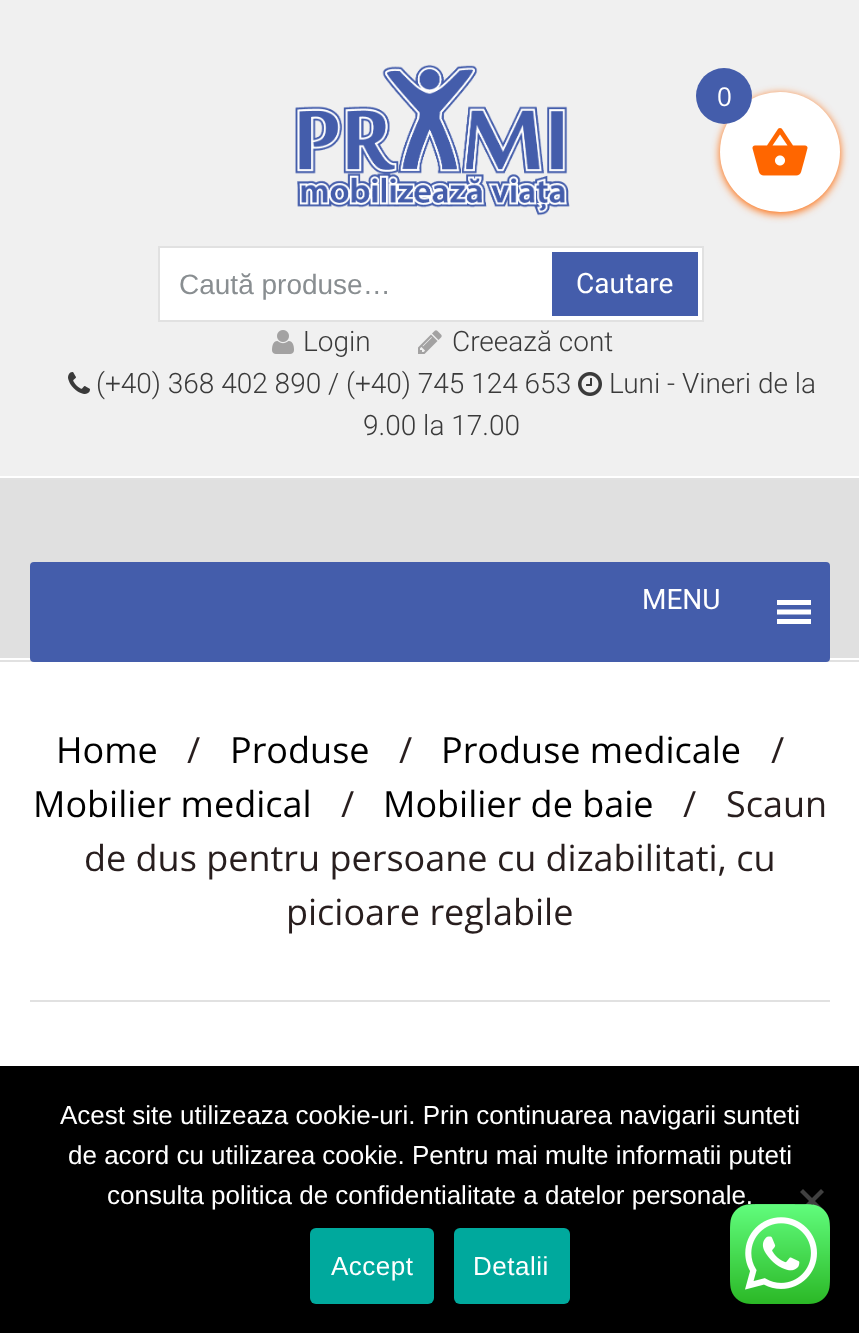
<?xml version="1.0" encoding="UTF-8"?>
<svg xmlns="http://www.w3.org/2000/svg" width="859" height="1333">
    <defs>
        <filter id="blur1" x="-50%" y="-200%" width="200%" height="500%"><feGaussianBlur stdDeviation="4"/></filter>
    </defs>
    <rect width="100%" height="100%" fill="#FFFFFF"/>
    <rect x="0" y="0" width="859" height="476" fill="#F0F0F0"/>
    <rect x="720" y="94" width="120" height="120" rx="60" fill="#FF6600" filter="url(#blur1)"/>
    <circle cx="780" cy="152" r="60" fill="#FFFFFF"/>
    <circle cx="724" cy="96" r="28" fill="#445DAB"/>
    <text x="717" y="106" font-family="Open Sans" font-size="26" fill="#FFFFFF">0</text>
    <image x="752" y="128" width="56" height="48" href="img_01.png"/>
    <rect x="0" y="480" width="859" height="178" fill="#E0E0E0"/>
    <rect x="0" y="478" width="859" height="2" fill="#E1E1E1"/>
    <image x="295" y="64" width="275" height="152" href="img_02.png"/>
    <rect x="159" y="247" width="544" height="74" fill="#FFFFFF" stroke="#E1E1E1" stroke-width="2"/>
    <text x="179" y="294" font-family="Liberation Sans" font-size="28" fill="#898E91">Caută produse…</text>
    <rect x="552" y="252" width="146" height="64" fill="#445DAB"/>
    <text x="576" y="293" font-family="Roboto" font-size="28" fill="#FFFFFF">Cautare</text>
    <image x="272" y="330" width="22" height="24" href="img_03.png"/>
    <text x="303" y="351" font-family="Roboto" font-size="28" font-weight="300" fill="#3A3A3A">Login</text>
    <image x="418" y="330" width="24" height="24" href="img_04.png"/>
    <text x="452" y="351" font-family="Roboto" font-size="28" font-weight="300" fill="#3A3A3A">Creează cont</text>
    <image x="68" y="372" width="22" height="22" href="img_05.png"/>
    <text x="96" y="393" font-family="Roboto" font-size="28" font-weight="300" fill="#3A3A3A">(+40) 368 402 890 / (+40) 745 124 653</text>
    <image x="578" y="372" width="24" height="24" href="img_06.png"/>
    <text x="609" y="393" font-family="Roboto" font-size="28" font-weight="300" fill="#3A3A3A">Luni - Vineri de la</text>
    <text x="363" y="435" font-family="Roboto" font-size="28" font-weight="300" fill="#3A3A3A">9.00 la 17.00</text>
    <rect x="0" y="660" width="859" height="2" fill="#E1E1E1"/>
    <rect x="30" y="562" width="800" height="100" rx="4" fill="#445DAB"/>
    <text x="642" y="609" font-family="Roboto" font-size="28" fill="#FFFFFF">MENU</text>
    <path d="M 777 624 H 811 V 619 H 777 Z M 777 600 V 605 H 811 V 600 Z M 777 614.5 H 811 V 609.5 H 777 Z" fill="#FFFFFF"/>
    <rect x="30" y="1000" width="800" height="2" fill="#E1E1E1"/>
    <text x="56" y="763" font-family="Open Sans" font-size="36" fill="#000000">Home</text>
    <text x="187" y="763" font-family="Open Sans" font-size="36" fill="#281E1E">/</text>
    <text x="230" y="763" font-family="Open Sans" font-size="36" fill="#000000">Produse</text>
    <text x="399" y="763" font-family="Open Sans" font-size="36" fill="#281E1E">/</text>
    <text x="441" y="763" font-family="Open Sans" font-size="36" fill="#000000">Produse medicale</text>
    <text x="771" y="763" font-family="Open Sans" font-size="36" fill="#281E1E">/</text>
    <text x="33" y="817" font-family="Open Sans" font-size="36" fill="#000000">Mobilier medical</text>
    <text x="341" y="817" font-family="Open Sans" font-size="36" fill="#281E1E">/</text>
    <text x="383" y="817" font-family="Open Sans" font-size="36" fill="#000000">Mobilier de baie</text>
    <text x="683" y="817" font-family="Open Sans" font-size="36" fill="#281E1E">/</text>
    <text x="726" y="817" font-family="Open Sans" font-size="36" fill="#281E1E">Scaun</text>
    <text x="84" y="871" font-family="Open Sans" font-size="36" fill="#281E1E">de dus pentru persoane cu dizabilitati, cu</text>
    <text x="286" y="925" font-family="Open Sans" font-size="36" fill="#281E1E">picioare reglabile</text>
    <rect x="0" y="1066" width="859" height="267" fill="#000000"/>
    <text x="60" y="1124" font-family="Liberation Sans" font-size="26" fill="#FFFFFF">Acest site utilizeaza cookie-uri. Prin continuarea navigarii sunteti</text>
    <text x="68" y="1164" font-family="Liberation Sans" font-size="26" fill="#FFFFFF">de acord cu utilizarea cookie. Pentru mai multe informatii puteti</text>
    <text x="107" y="1204" font-family="Liberation Sans" font-size="26" fill="#FFFFFF">consulta politica de confidentialitate a datelor personale.</text>
    <path d="M 821 1189 L 824 1192 L 803 1213 L 800 1210 Z" fill="#404040"/>
    <path d="M 800 1192 L 803 1189 L 824 1210 L 821 1213 Z" fill="#404040"/>
    <rect x="310" y="1228" width="124" height="76" rx="6" fill="#00A99D"/>
    <text x="331" y="1275" font-family="Liberation Sans" font-size="26" letter-spacing="0.5" fill="#FFFFFF">Accept</text>
    <rect x="454" y="1228" width="116" height="76" rx="6" fill="#00A99D"/>
    <text x="473" y="1275" font-family="Liberation Sans" font-size="26" letter-spacing="0.5" fill="#FFFFFF">Detalii</text>
    <image x="730" y="1204" width="100" height="100" href="img_07.png"/>
</svg>
